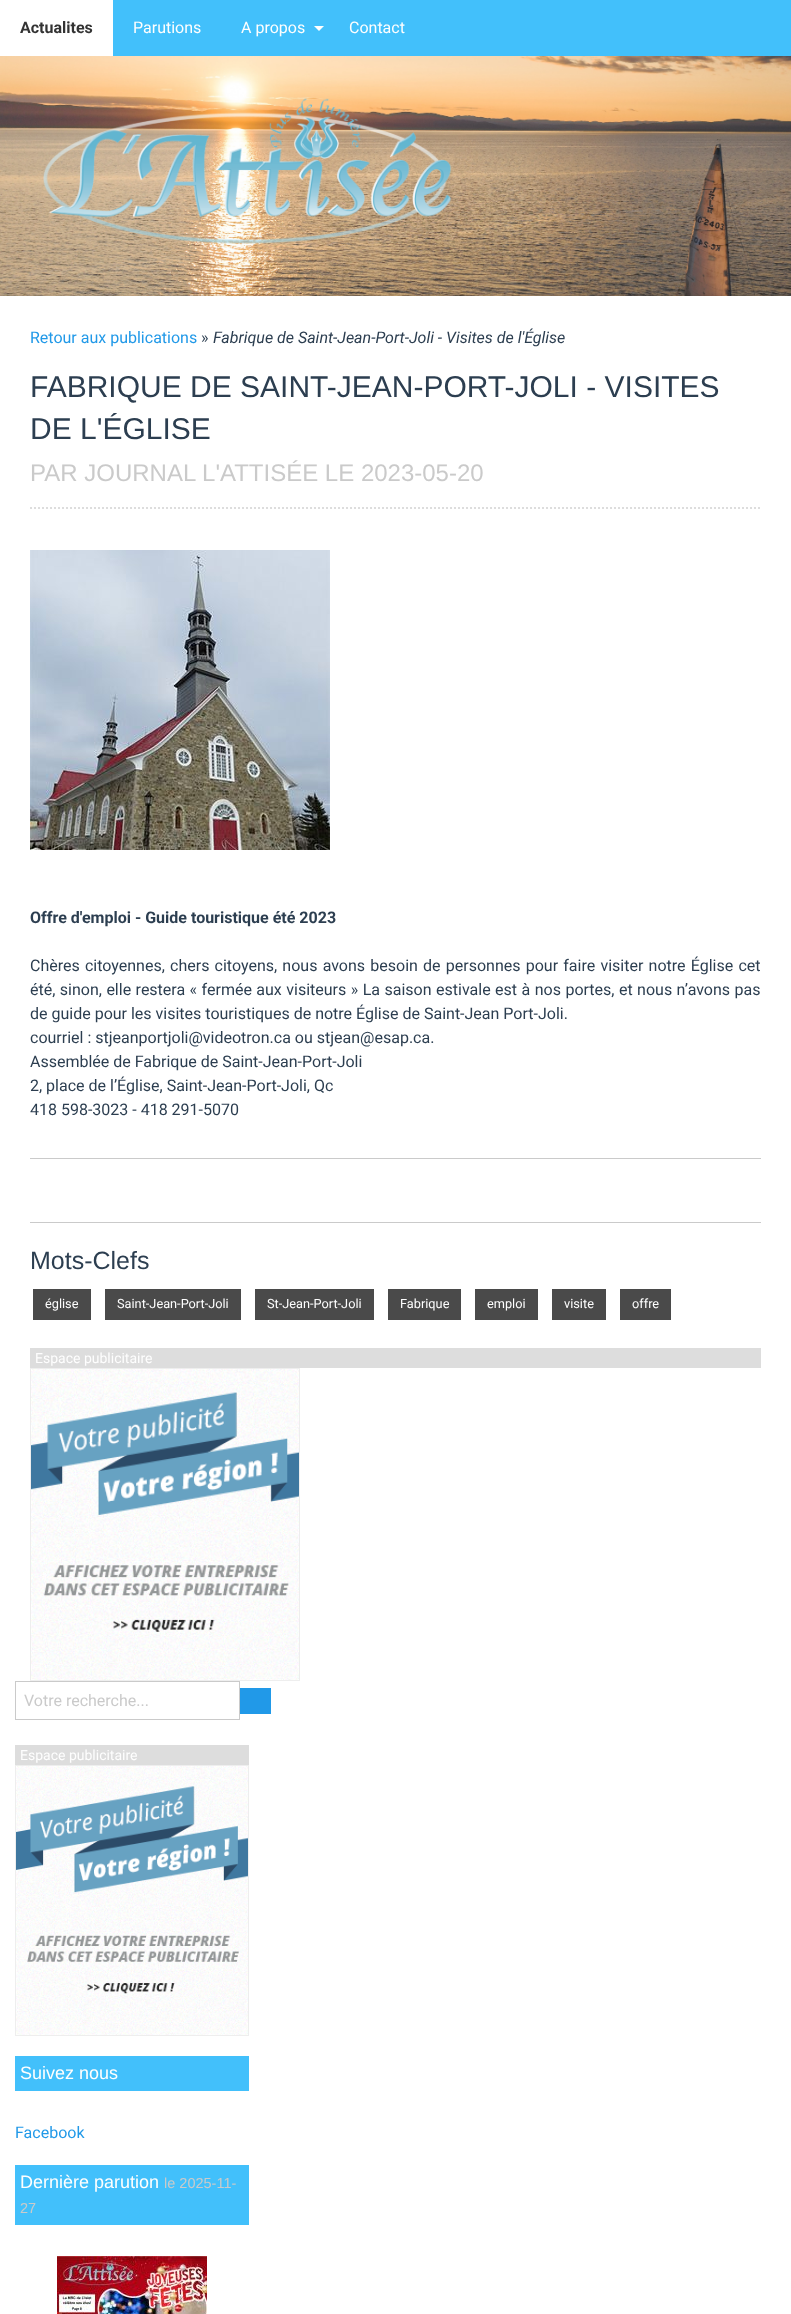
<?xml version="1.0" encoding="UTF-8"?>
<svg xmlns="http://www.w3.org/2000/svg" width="791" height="2314">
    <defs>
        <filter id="blur1" x="-50%" y="-200%" width="200%" height="500%"><feGaussianBlur stdDeviation="2"/></filter>
    </defs>
    <rect width="100%" height="100%" fill="#FFFFFF"/>
    <rect x="113" y="0" width="678" height="56" fill="#42C0FB"/>
    <text x="20" y="33" font-family="Roboto" font-size="16" font-weight="700" fill="#333333">Actualites</text>
    <text x="133" y="33" font-family="Roboto" font-size="16" fill="#FEFEFE">Parutions</text>
    <text x="241" y="33" font-family="Roboto" font-size="16" fill="#FEFEFE">A propos</text>
    <path d="M 314 26 H 324 L 319 31 Z" fill="#FFFFFF"/>
    <text x="349" y="33" font-family="Roboto" font-size="16" fill="#FEFEFE">Contact</text>
    <image x="0" y="56" width="791" height="240" href="img_01.png"/>
    <image x="43" y="98" width="409" height="146" href="img_02.png"/>
    <rect x="0" y="297" width="791" height="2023" fill="#000000" fill-opacity="0.2" filter="url(#blur1)"/>
    <rect x="0" y="296" width="791" height="2018" fill="#FFFFFF"/>
    <text x="30" y="343" font-family="Roboto" font-size="16" fill="#2199E8">Retour aux publications</text>
    <text x="201" y="343" font-family="Roboto" font-size="16" fill="#2C3E50">»</text>
    <text x="213" y="343" font-family="Roboto" font-size="16" font-style="italic" fill="#2C3E50">Fabrique de Saint-Jean-Port-Joli - Visites de l'Église</text>
    <path d="M 30 508 H 761" fill="none" stroke="#DDDDDD" stroke-width="2" stroke-dasharray="2 2"/>
    <text font-family="Liberation Sans" font-size="30" fill="#2C3E50">
        <tspan x="30" y="397">FABRIQUE DE SAINT-JEAN-PORT-JOLI - VISITES</tspan>
        <tspan x="30" y="439">DE L'ÉGLISE</tspan>
    </text>
    <text x="30" y="481" font-family="Liberation Sans" font-size="24" fill="#CACACA">PAR JOURNAL L'ATTISÉE LE 2023-05-20</text>
    <image x="30" y="550" width="300" height="300" href="img_03.png"/>
    <text x="30" y="923" font-family="Roboto" font-size="16" font-weight="700" fill="#2C3E50">Offre d'emploi - Guide touristique été 2023</text>
    <text font-family="Roboto" font-size="16" fill="#2C3E50">
        <tspan x="30" y="971" word-spacing="1.25">Chères citoyennes, chers citoyens, nous avons besoin de personnes pour faire visiter notre Église cet</tspan>
        <tspan x="30" y="995" word-spacing="0.5">été, sinon, elle restera « fermée aux visiteurs » La saison estivale est à nos portes, et nous n’avons pas</tspan>
        <tspan x="30" y="1019">de guide pour les visites touristiques de notre Église de Saint-Jean Port-Joli.</tspan>
        <tspan x="30" y="1043">courriel : stjeanportjoli@videotron.ca ou stjean@esap.ca.</tspan>
        <tspan x="30" y="1067">Assemblée de Fabrique de Saint-Jean-Port-Joli</tspan>
        <tspan x="30" y="1091">2, place de l’Église, Saint-Jean-Port-Joli, Qc</tspan>
        <tspan x="30" y="1115">418 598-3023 - 418 291-5070</tspan>
    </text>
    <rect x="30" y="1158" width="731" height="1" fill="#CACACA"/>
    <rect x="30" y="1222" width="731" height="1" fill="#CACACA"/>
    <text x="30" y="1269" font-family="Liberation Sans" font-size="25" fill="#2C3E50">Mots-Clefs</text>
    <rect x="33" y="1289" width="58" height="31" fill="#4A4A4A"/>
    <text x="45" y="1308" font-family="Roboto" font-size="12.75" fill="#FEFEFE">église</text>
    <rect x="105" y="1289" width="136" height="31" fill="#4A4A4A"/>
    <text x="117" y="1308" font-family="Roboto" font-size="12.75" fill="#FEFEFE">Saint-Jean-Port-Joli</text>
    <rect x="255" y="1289" width="119" height="31" fill="#4A4A4A"/>
    <text x="267" y="1308" font-family="Roboto" font-size="12.75" fill="#FEFEFE">St-Jean-Port-Joli</text>
    <rect x="388" y="1289" width="73" height="31" fill="#4A4A4A"/>
    <text x="400" y="1308" font-family="Roboto" font-size="12.75" fill="#FEFEFE">Fabrique</text>
    <rect x="475" y="1289" width="63" height="31" fill="#4A4A4A"/>
    <text x="487" y="1308" font-family="Roboto" font-size="12.75" fill="#FEFEFE">emploi</text>
    <rect x="552" y="1289" width="54" height="31" fill="#4A4A4A"/>
    <text x="564" y="1308" font-family="Roboto" font-size="12.75" fill="#FEFEFE">visite</text>
    <rect x="620" y="1289" width="51" height="31" fill="#4A4A4A"/>
    <text x="632" y="1308" font-family="Roboto" font-size="12.75" fill="#FEFEFE">offre</text>
    <rect x="30" y="1348" width="731" height="20" fill="#DDDDDD"/>
    <text x="35" y="1363" font-family="Roboto" font-size="14" fill="#FEFEFE">Espace publicitaire</text>
    <rect x="30.5" y="1368.5" width="269" height="312" fill="none" stroke="#EEEEEE"/>
    <image x="31" y="1369" width="268" height="311" href="img_04.png"/>
    <rect x="15.5" y="1681.5" width="224" height="38" fill="none" stroke="#CACACA"/>
    <text x="24" y="1706" font-family="Roboto" font-size="16" fill="#CACACA">Votre recherche...</text>
    <rect x="240" y="1688" width="31" height="26" fill="#2199E8"/>
    <rect x="15" y="1745" width="234" height="20" fill="#DDDDDD"/>
    <text x="20" y="1760" font-family="Roboto" font-size="14" fill="#FEFEFE">Espace publicitaire</text>
    <rect x="15.5" y="1765.5" width="233" height="270" fill="none" stroke="#EEEEEE"/>
    <image x="16" y="1766" width="232" height="269" href="img_05.png"/>
    <rect x="15" y="2056" width="234" height="35" fill="#42C0FB"/>
    <text x="20" y="2079" font-family="Liberation Sans" font-size="18" fill="#FEFEFE">Suivez nous</text>
    <text x="15" y="2138" font-family="Roboto" font-size="16" fill="#2199E8">Facebook</text>
    <rect x="15" y="2165" width="234" height="60" fill="#42C0FB"/>
    <text x="20" y="2188" font-family="Liberation Sans" font-size="18" fill="#FEFEFE">Dernière parution</text>
    <text x="164" y="2188" font-family="Liberation Sans" font-size="14.5" fill="#CACACA">le 2025-11-</text>
    <text x="20" y="2213" font-family="Liberation Sans" font-size="14.5" fill="#CACACA">27</text>
    <image x="57" y="2256" width="150" height="58" href="img_06.png"/>
</svg>
